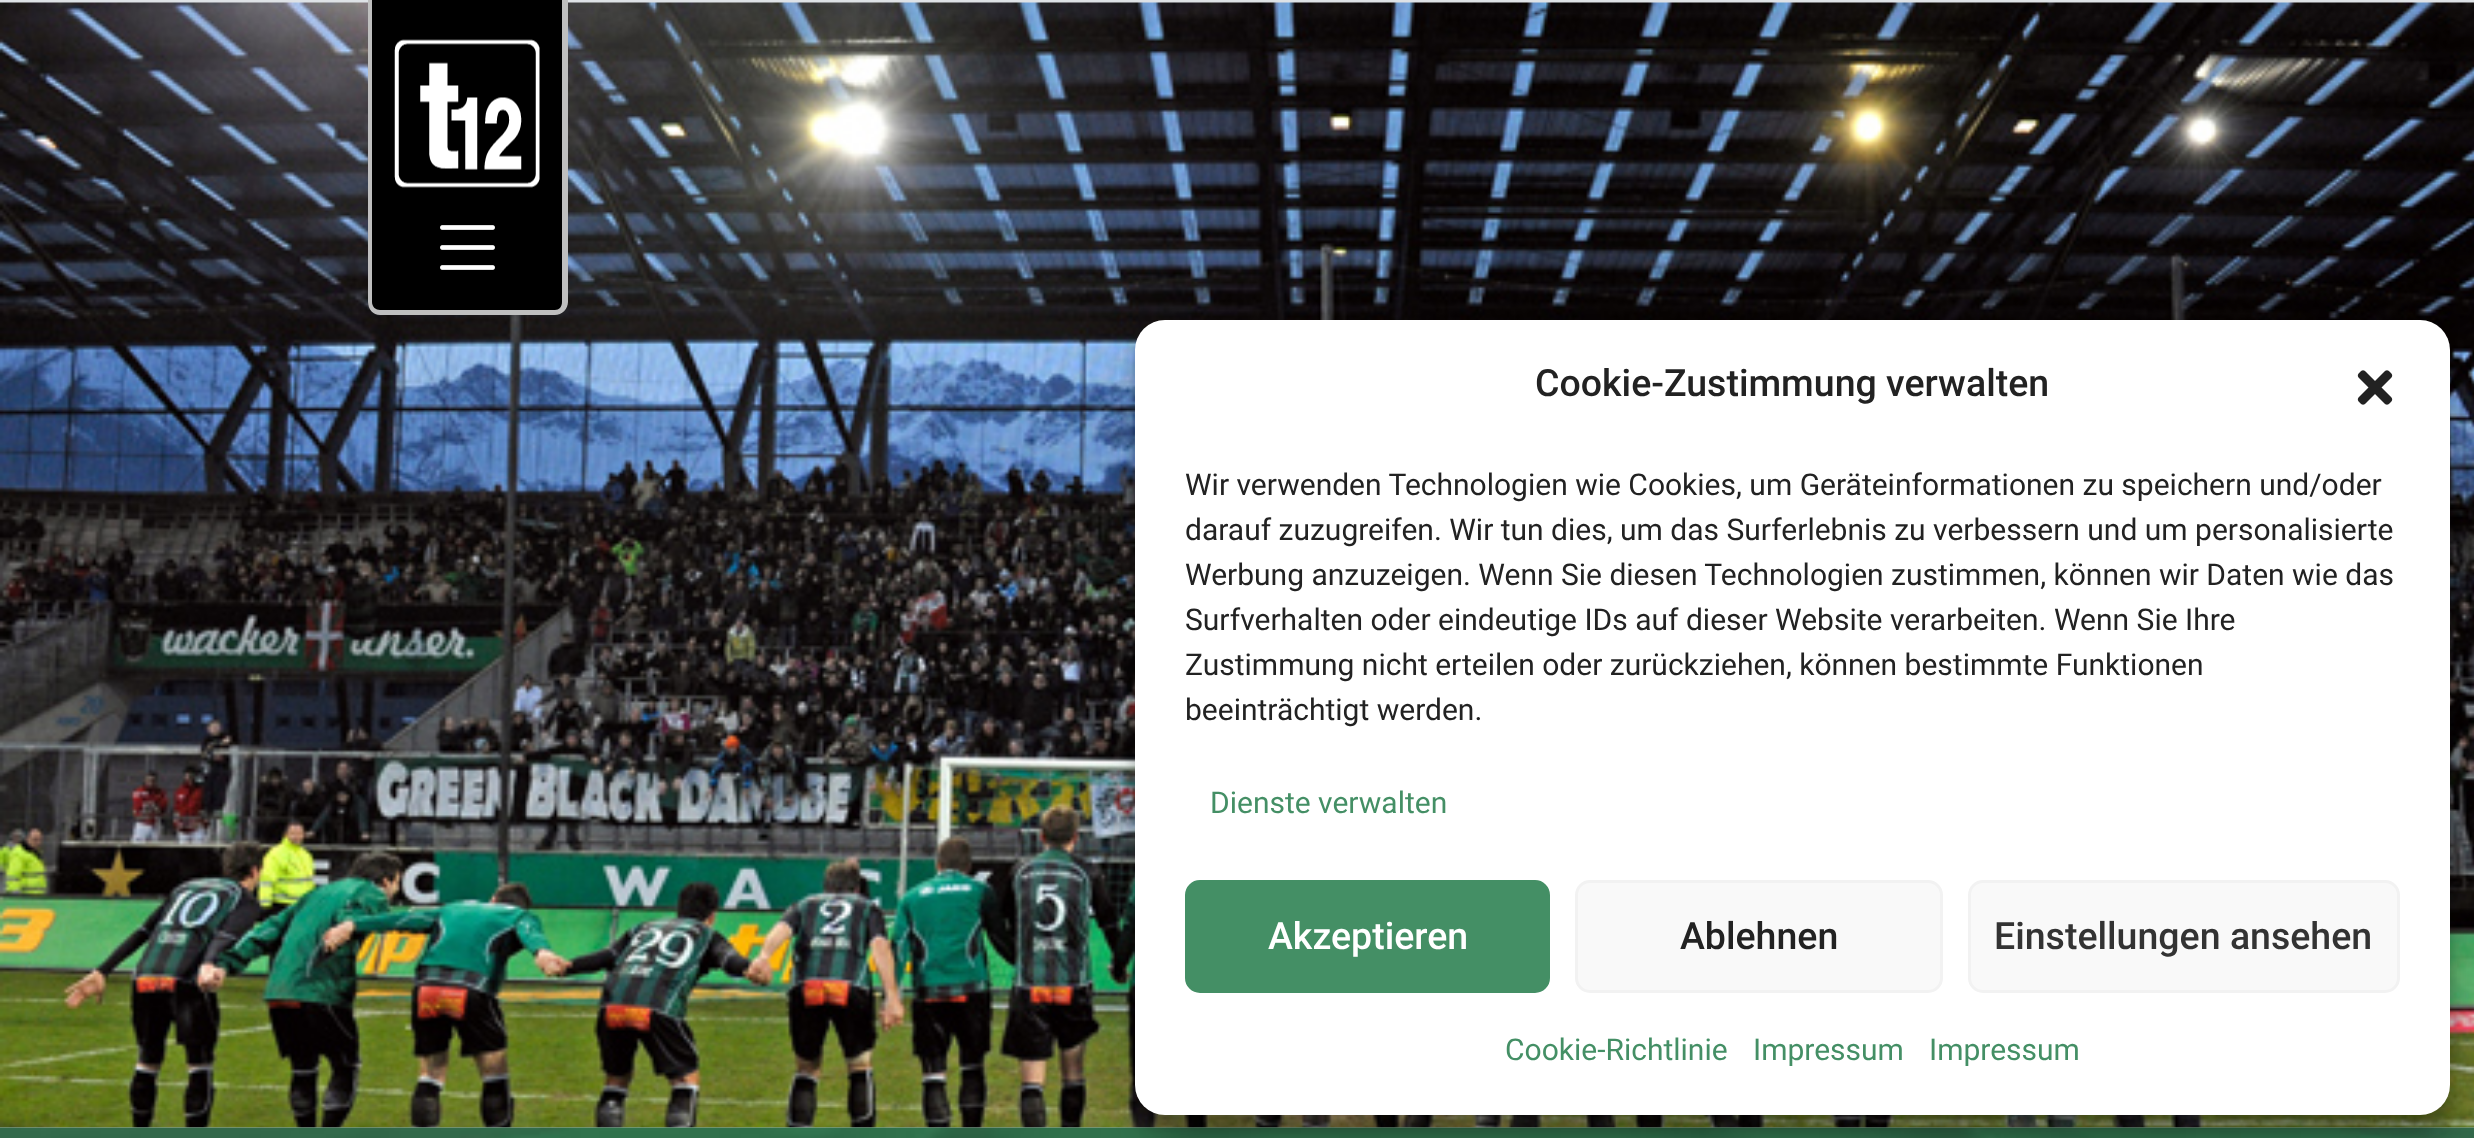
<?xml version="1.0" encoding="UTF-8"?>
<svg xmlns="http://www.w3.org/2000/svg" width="2474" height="1138">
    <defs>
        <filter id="blur1" x="-50%" y="-200%" width="200%" height="500%"><feGaussianBlur stdDeviation="7.5"/></filter>
        <filter id="blur2" x="-50%" y="-200%" width="200%" height="500%"><feGaussianBlur stdDeviation="25"/></filter>
    </defs>
    <rect width="100%" height="100%" fill="#FFFFFF"/>
    <rect x="0" y="0" width="2474" height="3" fill="#DEE2E6"/>
    <image x="0" y="2" width="2474" height="1126" href="img_03.png"/>
    <path d="M 368 0 H 568 V 302 C 568 309 562 315 555 315 H 381 C 374 315 368 309 368 302 Z" fill="#000000"/>
    <path d="M 368 0 H 568 V 302 C 568 309 562 315 555 315 H 380 C 373 315 368 309 368 302 Z M 372 0 H 562 V 302 C 562 307 559 310 555 310 H 380 C 376 310 372 307 372 302 Z" fill="#BFBFBF" fill-rule="evenodd"/>
    <image x="394" y="39" width="146" height="149" href="img_01.png"/>
    <image x="440" y="225" width="55" height="45" href="img_02.png"/>
    <image x="0" y="1127" width="2474" height="11" href="img_04.png"/>
    <rect x="1135" y="335" width="1315" height="795" rx="30" fill="#000000" fill-opacity="0.23" filter="url(#blur1)"/>
    <rect x="1135" y="345" width="1315" height="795" rx="30" fill="#000000" fill-opacity="0.19" filter="url(#blur2)"/>
    <rect x="1135" y="320" width="1315" height="795" rx="30" fill="#FFFFFF"/>
    <text x="1535" y="396" font-family="Roboto" font-size="37.5" font-weight="500" fill="#222222">Cookie-Zustimmung verwalten</text>
    <image x="2357" y="370" width="36" height="35" href="img_05.png"/>
    <text font-family="Roboto" font-size="30" fill="#222222">
        <tspan x="1185" y="495">Wir verwenden Technologien wie Cookies, um Geräteinformationen zu speichern und/oder</tspan>
        <tspan x="1185" y="540">darauf zuzugreifen. Wir tun dies, um das Surferlebnis zu verbessern und um personalisierte</tspan>
        <tspan x="1185" y="585">Werbung anzuzeigen. Wenn Sie diesen Technologien zustimmen, können wir Daten wie das</tspan>
        <tspan x="1185" y="630">Surfverhalten oder eindeutige IDs auf dieser Website verarbeiten. Wenn Sie Ihre</tspan>
        <tspan x="1185" y="675">Zustimmung nicht erteilen oder zurückziehen, können bestimmte Funktionen</tspan>
        <tspan x="1185" y="720">beeinträchtigt werden.</tspan>
    </text>
    <text x="1210" y="813" font-family="Roboto" font-size="30" fill="#448F65">Dienste verwalten</text>
    <rect x="1186.5" y="881.5" width="362" height="110" rx="13.5" fill="#448F65" stroke="#448F65" stroke-width="3"/>
    <text x="1268" y="949" font-family="Roboto" font-size="37.5" font-weight="500" fill="#FFFFFF">Akzeptieren</text>
    <rect x="1576.5" y="881.5" width="365" height="110" rx="13.5" fill="#F9F9F9" stroke="#F2F2F2" stroke-width="3"/>
    <text x="1680" y="949" font-family="Roboto" font-size="37.5" font-weight="500" fill="#222222">Ablehnen</text>
    <rect x="1969.5" y="881.5" width="429" height="110" rx="13.5" fill="#F9F9F9" stroke="#F2F2F2" stroke-width="3"/>
    <text x="1994" y="949" font-family="Roboto" font-size="37.5" font-weight="500" fill="#333333">Einstellungen ansehen</text>
    <text x="1505" y="1060" font-family="Roboto" font-size="30" fill="#448F65">Cookie-Richtlinie</text>
    <text x="1753" y="1060" font-family="Roboto" font-size="30" fill="#448F65">Impressum</text>
    <text x="1929" y="1060" font-family="Roboto" font-size="30" fill="#448F65">Impressum</text>
</svg>
